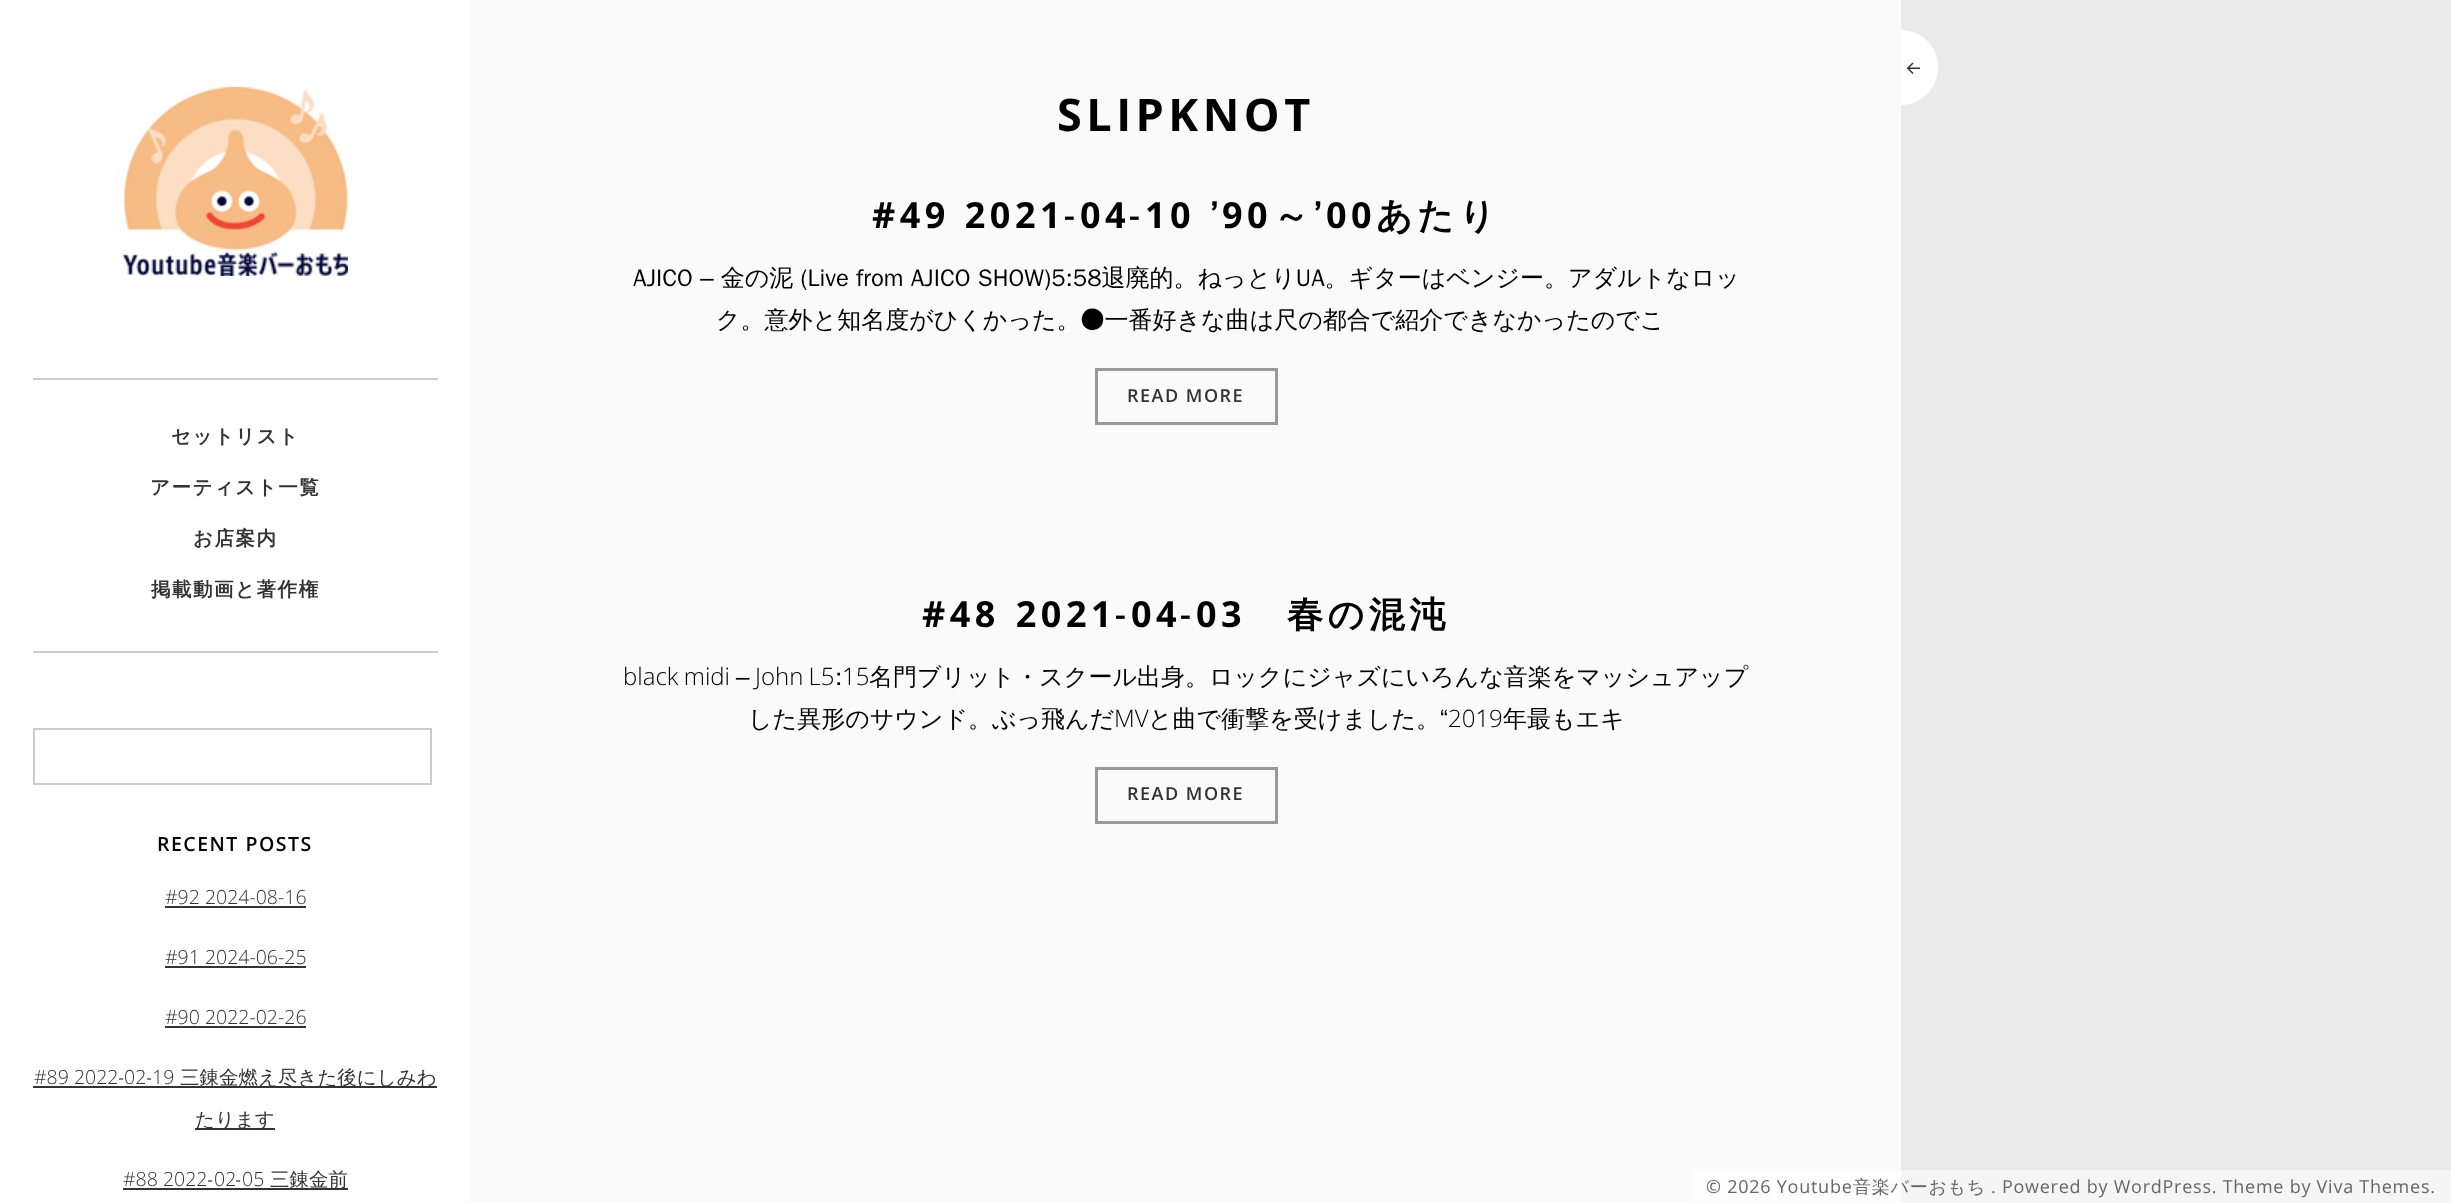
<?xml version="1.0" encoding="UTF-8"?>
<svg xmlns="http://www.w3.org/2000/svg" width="2451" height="1203">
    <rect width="100%" height="100%" fill="#EAEAEA"/>
    <rect x="1901" y="1170" width="550" height="33" fill="#F5F5F5"/>
    <rect x="0" y="0" width="471" height="1203" fill="#FFFFFF"/>
    <image x="123" y="87" width="225" height="189" href="img_01.png"/>
    <rect x="33" y="378" width="405" height="2" fill="#CCCCCC"/>
    <rect x="33" y="651" width="405" height="2" fill="#CCCCCC"/>
    <text x="171" y="443" font-family="WenQuanYi Zen Hei" font-size="19.5" font-weight="700" letter-spacing="1.5" fill="#333333">セットリスト</text>
    <text x="150" y="494" font-family="WenQuanYi Zen Hei" font-size="19.5" font-weight="700" letter-spacing="1.5" fill="#333333">アーティスト一覧</text>
    <text x="193" y="545" font-family="WenQuanYi Zen Hei" font-size="19.5" font-weight="700" letter-spacing="1.5" fill="#333333">お店案内</text>
    <text x="151" y="596" font-family="WenQuanYi Zen Hei" font-size="19.5" font-weight="700" letter-spacing="1.5" fill="#333333">掲載動画と著作権</text>
    <rect x="34" y="729" width="397" height="55" fill="none" stroke="#CCCCCC" stroke-width="2"/>
    <text x="157" y="851" font-family="Open Sans" font-size="19.5" font-weight="600" letter-spacing="1.5" fill="#000000">RECENT POSTS</text>
    <text x="165" y="904" font-family="Open Sans" font-size="19.5" font-weight="300" fill="#333333">#92 2024-08-16</text>
    <rect x="165" y="906" width="141" height="2" fill="#333333"/>
    <text x="165" y="964" font-family="Open Sans" font-size="19.5" font-weight="300" fill="#333333">#91 2024-06-25</text>
    <rect x="165" y="966" width="141" height="2" fill="#333333"/>
    <text x="165" y="1024" font-family="Open Sans" font-size="19.5" font-weight="300" fill="#333333">#90 2022-02-26</text>
    <rect x="165" y="1026" width="141" height="2" fill="#333333"/>
    <text x="34" y="1084" font-family="Open Sans" font-size="19.5" font-weight="300" fill="#333333">#89 2022</text>
    <text x="119" y="1084" font-family="WenQuanYi Zen Hei" font-size="19.5" font-weight="500" fill="#333333">-</text>
    <rect x="33" y="1086" width="404" height="2" fill="#333333"/>
    <text x="124" y="1084" font-family="Open Sans" font-size="19.5" font-weight="300" fill="#333333">02</text>
    <text x="147" y="1084" font-family="WenQuanYi Zen Hei" font-size="19.5" font-weight="500" fill="#333333">-</text>
    <text x="152" y="1084" font-family="Open Sans" font-size="19.5" font-weight="300" fill="#333333">19</text>
    <text x="180" y="1084" font-family="WenQuanYi Zen Hei" font-size="19.5" font-weight="500" fill="#333333">三錬金燃え尽きた後にしみわ</text>
    <rect x="195" y="1128" width="80" height="2" fill="#333333"/>
    <text x="195" y="1126" font-family="WenQuanYi Zen Hei" font-size="19.5" font-weight="500" fill="#333333">たります</text>
    <text x="123" y="1186" font-family="Open Sans" font-size="19.5" font-weight="300" fill="#333333">#88 2022</text>
    <text x="208" y="1186" font-family="WenQuanYi Zen Hei" font-size="19.5" font-weight="500" fill="#333333">-</text>
    <rect x="123" y="1188" width="225" height="2" fill="#333333"/>
    <text x="214" y="1186" font-family="Open Sans" font-size="19.5" font-weight="300" fill="#333333">02</text>
    <text x="236" y="1186" font-family="WenQuanYi Zen Hei" font-size="19.5" font-weight="500" fill="#333333">-</text>
    <text x="242" y="1186" font-family="Open Sans" font-size="19.5" font-weight="300" fill="#333333">05</text>
    <text x="270" y="1186" font-family="WenQuanYi Zen Hei" font-size="19.5" font-weight="500" fill="#333333">三錬金前</text>
    <path d="M 1901 30 C 1921.5 30 1938 46.5 1938 67 V 68 C 1938 88.5 1921.5 105 1901 105 Z" fill="#FFFFFF"/>
    <image x="1906" y="62" width="14" height="12" href="img_02.png"/>
    <rect x="471" y="0" width="1430" height="1203" fill="#FAFAFA"/>
    <rect x="1692" y="1170" width="209" height="33" fill="#FDFDFD"/>
    <text x="1057" y="131" font-family="Open Sans" font-size="45" font-weight="700" letter-spacing="4.5" fill="#000000">SLIPKNOT</text>
    <text x="872" y="228" word-spacing="1" font-family="Open Sans" font-size="36" font-weight="700" letter-spacing="4.5" fill="#000000">#49 2021</text>
    <text x="1065" y="228" font-family="WenQuanYi Zen Hei" font-size="36" font-weight="700" letter-spacing="4.5" fill="#000000">-</text>
    <text x="1080" y="228" font-family="Open Sans" font-size="36" font-weight="700" letter-spacing="4.5" fill="#000000">04</text>
    <text x="1130" y="228" font-family="WenQuanYi Zen Hei" font-size="36" font-weight="700" letter-spacing="4.5" fill="#000000">-</text>
    <text x="1145" y="228" font-family="Open Sans" font-size="36" font-weight="700" letter-spacing="4.5" fill="#000000">10</text>
    <text x="1210" y="228" font-family="WenQuanYi Zen Hei" font-size="36" font-weight="700" letter-spacing="4.5" fill="#000000">’</text>
    <text x="1222" y="228" font-family="Open Sans" font-size="36" font-weight="700" letter-spacing="4.5" fill="#000000">90</text>
    <text x="1273" y="228" font-family="WenQuanYi Zen Hei" font-size="36" font-weight="700" letter-spacing="4.5" fill="#000000">～’</text>
    <text x="1326" y="228" font-family="Open Sans" font-size="36" font-weight="700" letter-spacing="4.5" fill="#000000">00</text>
    <text x="1376" y="228" font-family="WenQuanYi Zen Hei" font-size="36" font-weight="700" letter-spacing="4.5" fill="#000000">あたり</text>
    <text x="633" y="286" font-family="WenQuanYi Zen Hei" font-size="24" font-weight="500" fill="#000000">AJICO – 金の泥 (Live from AJICO SHOW)5:58退廃的。ねっとりUA。ギターはベンジー。アダルトなロッ</text>
    <text x="716" y="328" font-family="WenQuanYi Zen Hei" font-size="24" font-weight="500" fill="#000000">ク。意外と知名度がひくかった。●一番好きな曲は尺の都合で紹介できなかったのでこ</text>
    <rect x="1096.5" y="369.5" width="180" height="54" fill="none" stroke="#999999" stroke-width="3"/>
    <text x="1127" y="402" font-family="Open Sans" font-size="18" font-weight="600" letter-spacing="1.5" fill="#333333">READ MORE</text>
    <text x="922" y="627" word-spacing="2" font-family="Open Sans" font-size="36" font-weight="700" letter-spacing="4.5" fill="#000000">#48 2021</text>
    <text x="1116" y="627" font-family="WenQuanYi Zen Hei" font-size="36" font-weight="700" letter-spacing="4.5" fill="#000000">-</text>
    <text x="1131" y="627" font-family="Open Sans" font-size="36" font-weight="700" letter-spacing="4.5" fill="#000000">04</text>
    <text x="1181" y="627" font-family="WenQuanYi Zen Hei" font-size="36" font-weight="700" letter-spacing="4.5" fill="#000000">-</text>
    <text x="1196" y="627" font-family="Open Sans" font-size="36" font-weight="700" letter-spacing="4.5" fill="#000000">03</text>
    <text x="1287" y="627" font-family="WenQuanYi Zen Hei" font-size="36" font-weight="700" letter-spacing="4.5" fill="#000000">春の混沌</text>
    <text x="623" y="685" word-spacing="-1" font-family="Open Sans" font-size="24" font-weight="300" fill="#000000">black midi</text>
    <text x="736" y="685" font-family="WenQuanYi Zen Hei" font-size="24" font-weight="500" fill="#000000">–</text>
    <text x="755" y="685" word-spacing="-1" font-family="Open Sans" font-size="24" font-weight="300" fill="#000000">John L5</text>
    <text x="835" y="685" font-family="WenQuanYi Zen Hei" font-size="24" font-weight="500" fill="#000000">:</text>
    <text x="842" y="685" font-family="Open Sans" font-size="24" font-weight="300" fill="#000000">15</text>
    <text x="869" y="685" font-family="WenQuanYi Zen Hei" font-size="24" font-weight="500" fill="#000000">名門ブリット・スクール出身。ロックにジャズにいろんな音楽をマッシュアップ</text>
    <text x="748" y="727" font-family="WenQuanYi Zen Hei" font-size="24" font-weight="500" fill="#000000">した異形のサウンド。ぶっ飛んだ</text>
    <text x="1114" y="727" font-family="Open Sans" font-size="24" font-weight="300" fill="#000000">MV</text>
    <text x="1148" y="727" font-family="WenQuanYi Zen Hei" font-size="24" font-weight="500" fill="#000000">と曲で衝撃を受けました。“</text>
    <text x="1448" y="727" font-family="Open Sans" font-size="24" font-weight="300" fill="#000000">2019</text>
    <text x="1503" y="727" font-family="WenQuanYi Zen Hei" font-size="24" font-weight="500" fill="#000000">年最もエキ</text>
    <rect x="1096.5" y="768.5" width="180" height="54" fill="none" stroke="#999999" stroke-width="3"/>
    <text x="1127" y="800" font-family="Open Sans" font-size="18" font-weight="600" letter-spacing="1.5" fill="#333333">READ MORE</text>
    <text x="1706" y="1193" font-family="Open Sans" font-size="18" letter-spacing="0.75" fill="#666666">© 2026 Youtube</text>
    <text x="1853" y="1193" font-family="WenQuanYi Zen Hei" font-size="18" font-weight="500" letter-spacing="0.75" fill="#666666">音楽バーおもち</text>
    <text x="1991" y="1193" font-family="Open Sans" font-size="18" letter-spacing="0.75" fill="#666666">. Powered by WordPress. Theme by Viva Themes.</text>
</svg>
